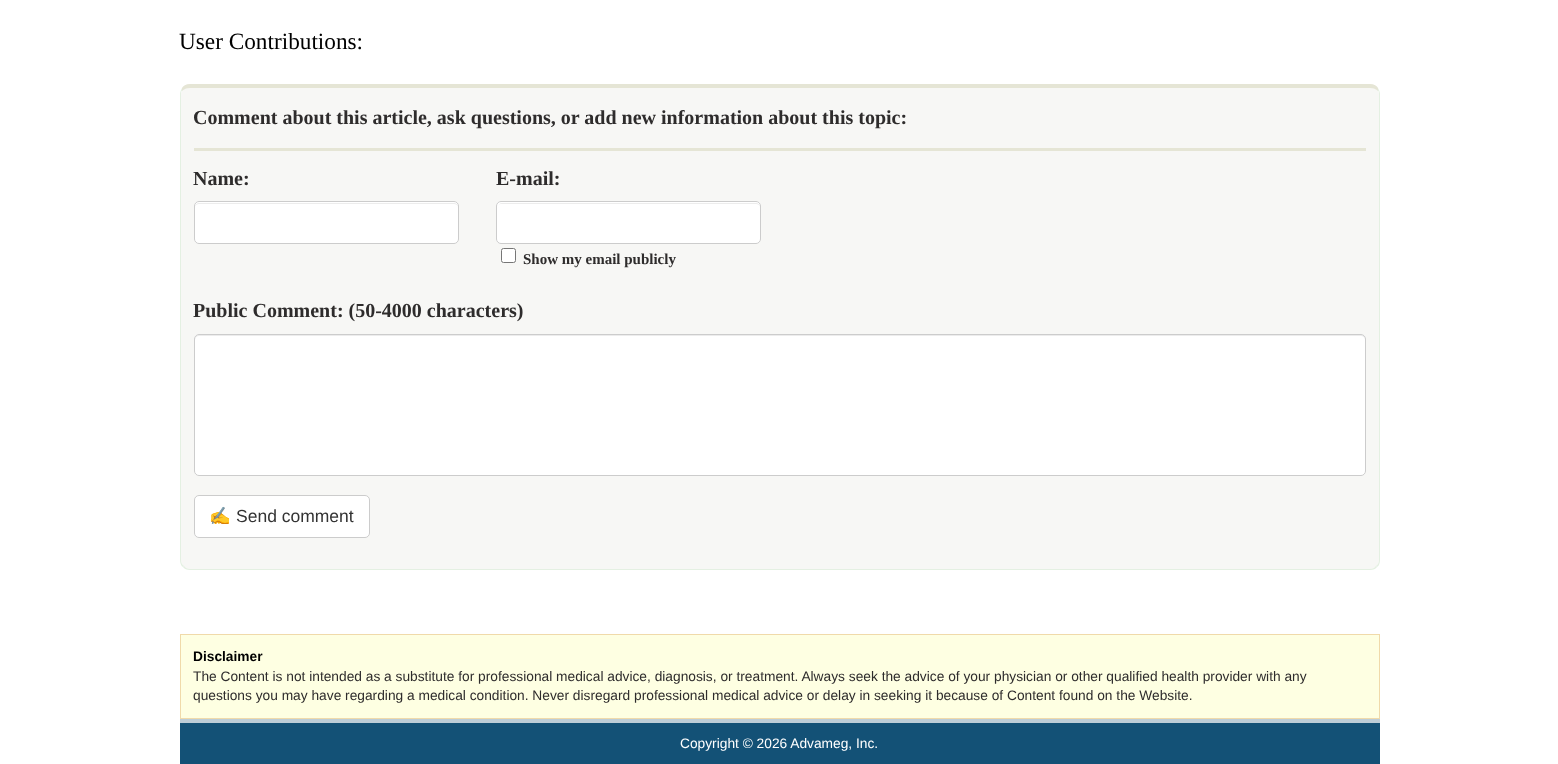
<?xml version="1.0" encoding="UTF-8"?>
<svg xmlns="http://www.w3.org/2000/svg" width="1558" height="764">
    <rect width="100%" height="100%" fill="#FFFFFF"/>
    <text x="179" y="49" font-family="Liberation Serif" font-size="23.25" fill="#000000">User Contributions:</text>
    <path d="M 190 88 H 1370 C 1375 88 1379 90 1379 94 V 560 C 1379 565 1375 569 1370 569 H 190 C 185 569 181 565 181 560 V 94 C 181 90 185 88 190 88 Z" fill="#F7F7F5"/>
    <path d="M 190 84 C 186 84 183 86 182 88 V 91 C 184 89 187 88 190 88 H 1370 C 1373 88 1376 89 1378 91 V 88 C 1377 86 1374 84 1370 84 Z" fill="#E5E5D5"/>
    <path d="M 1378 88 C 1379 90 1380 92 1380 94 V 560 C 1380 563 1379 566 1377 567 L 1376 566 C 1378 565 1379 562 1379 560 V 94 C 1379 93 1379 91 1378 91 Z" fill="#E4F0E2"/>
    <path d="M 190 570 H 1370 C 1373 570 1376 569 1377 567 L 1376 566 C 1375 568 1372 569 1370 569 H 190 C 188 569 185 568 184 566 L 183 567 C 184 569 187 570 190 570 Z" fill="#E4F0E2"/>
    <path d="M 180 94 V 560 C 180 563 181 566 183 567 L 184 566 C 182 565 181 562 181 560 V 94 C 181 93 181 91 182 91 V 88 C 181 90 180 92 180 94 Z" fill="#E4F0E2"/>
    <rect x="194" y="148" width="1172" height="3" fill="#E5E5D5"/>
    <text x="193" y="124" font-family="Liberation Serif" font-size="20" font-weight="700" fill="#2E2C2C">Comment about this article, ask questions, or add new information about this topic:</text>
    <text x="193" y="185" font-family="Liberation Serif" font-size="20" font-weight="700" fill="#2E2C2C">Name:</text>
    <rect x="194" y="201" width="265" height="43" rx="5" fill="#FFFFFF"/>
    <path d="M 199 204 H 454 C 456 204 458 205 458 208 V 207 C 458 205 456 203 454 203 H 199 C 197 203 195 205 195 207 V 208 C 195 205 197 204 199 204 Z" fill="#ECECEC"/>
    <rect x="194.5" y="201.5" width="264" height="42" rx="4.5" fill="none" stroke="#CCCCCC"/>
    <text x="496" y="185" font-family="Liberation Serif" font-size="20" font-weight="700" fill="#2E2C2C">E-mail:</text>
    <rect x="496" y="201" width="265" height="43" rx="5" fill="#FFFFFF"/>
    <path d="M 501 204 H 756 C 758 204 760 205 760 208 V 207 C 760 205 758 203 756 203 H 502 C 500 203 498 205 498 207 V 208 C 498 205 499 204 501 204 Z" fill="#ECECEC"/>
    <rect x="496.5" y="201.5" width="264" height="42" rx="4.5" fill="none" stroke="#CCCCCC"/>
    <rect x="501.5" y="248.5" width="14" height="14" rx="2" fill="#FFFFFF" stroke="#767676"/>
    <text x="523" y="264" font-family="Liberation Serif" font-size="15" font-weight="700" fill="#2E2C2C">Show my email publicly</text>
    <text x="193" y="317" font-family="Liberation Serif" font-size="20" font-weight="700" fill="#2E2C2C">Public Comment: (50-4000 characters)</text>
    <rect x="194" y="334" width="1172" height="142" rx="5" fill="#FFFFFF"/>
    <path d="M 199 336 H 1361 C 1363 336 1365 338 1365 340 C 1365 337 1364 335 1361 335 H 199 C 196 335 195 337 195 340 C 195 338 197 336 199 336 Z" fill="#ECECEC"/>
    <rect x="194.5" y="334.5" width="1171" height="141" rx="4.5" fill="none" stroke="#CCCCCC"/>
    <rect x="194.5" y="495.5" width="175" height="42" rx="4.5" fill="#FFFFFF" stroke="#CCCCCC"/>
    <text x="209" y="522" font-family="Noto Color Emoji" font-size="17.5" fill="#333333">✍</text>
    <text x="236" y="522" font-family="Liberation Sans" font-size="17.5" fill="#333333">Send comment</text>
    <rect x="180.5" y="634.5" width="1199" height="84" fill="#FEFFE2" stroke="#F0DAAA"/>
    <text x="193" y="661" font-family="Liberation Sans" font-size="13.75" font-weight="700" fill="#000000">Disclaimer</text>
    <text font-family="Liberation Sans" font-size="13.75" fill="#2E2C2C">
        <tspan x="193" y="681">The Content is not intended as a substitute for professional medical advice, diagnosis, or treatment. Always seek the advice of your physician or other qualified health provider with any</tspan>
        <tspan x="193" y="700">questions you may have regarding a medical condition. Never disregard professional medical advice or delay in seeking it because of Content found on the Website.</tspan>
    </text>
    <rect x="180" y="723" width="1200" height="41" fill="#135176"/>
    <rect x="180" y="719" width="1200" height="4" fill="#BDCDD7"/>
    <text x="680" y="748" font-family="Liberation Sans" font-size="13.75" fill="#FFFFFF">Copyright © 2026 Advameg, Inc.</text>
</svg>
